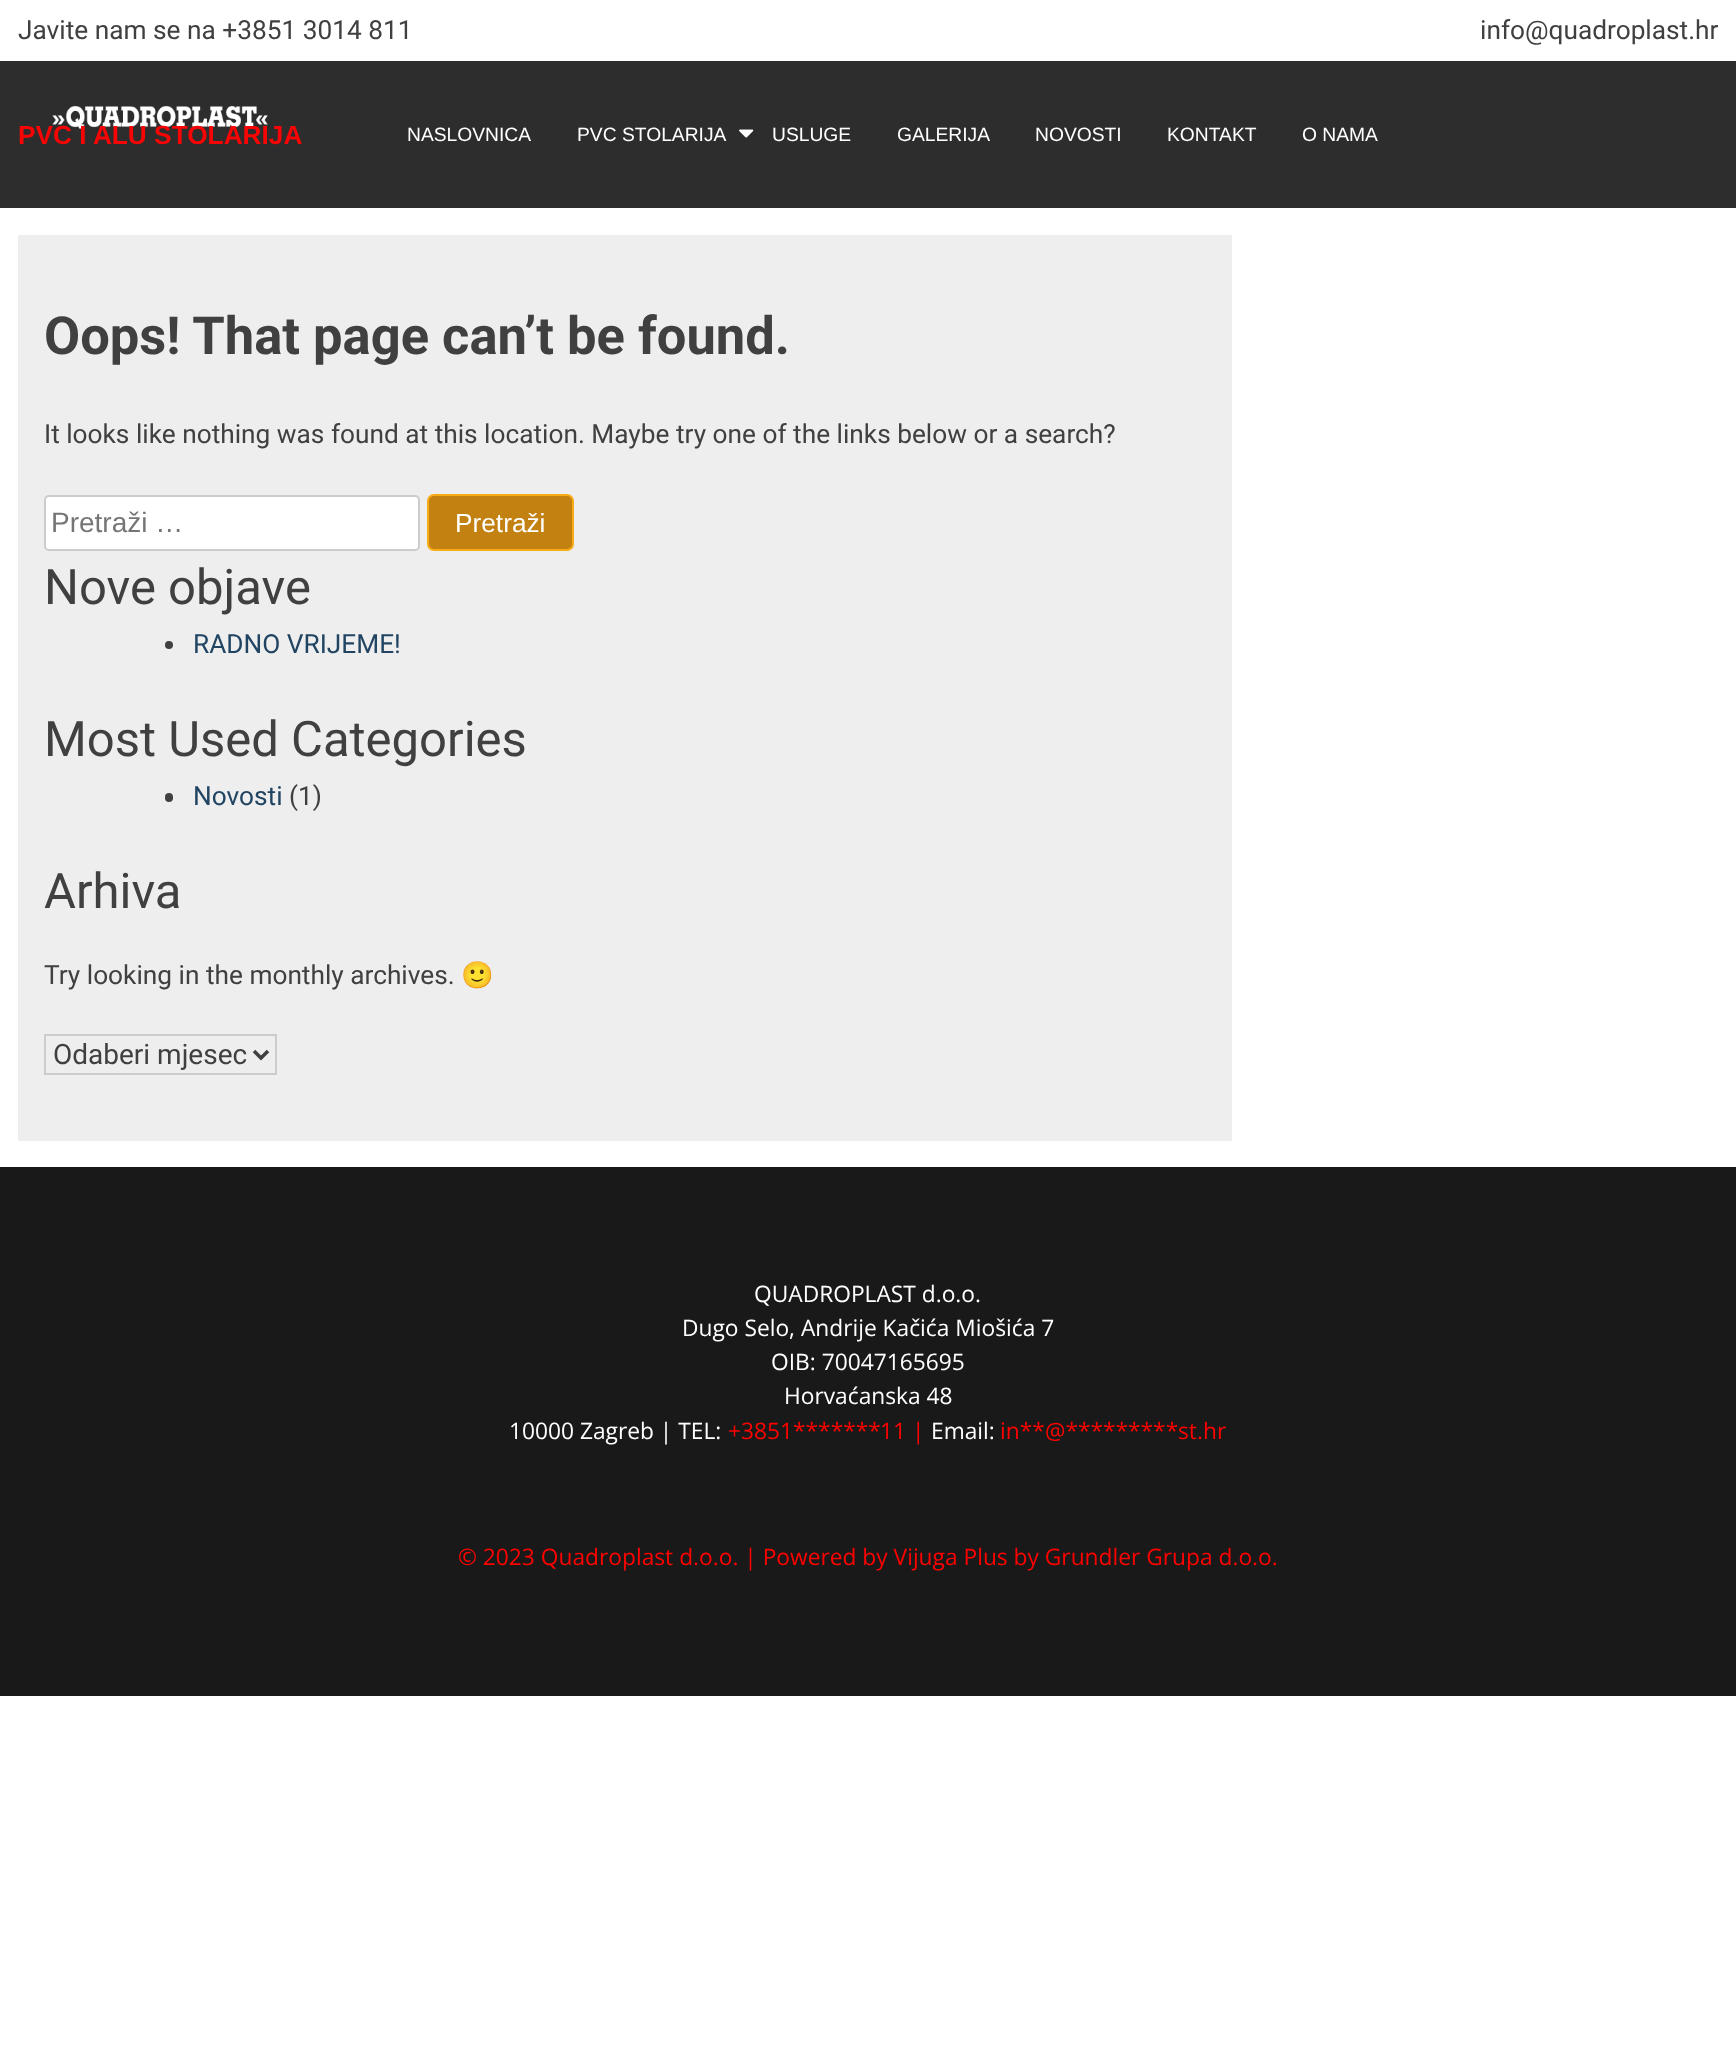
<?xml version="1.0" encoding="UTF-8"?>
<svg xmlns="http://www.w3.org/2000/svg" width="1736" height="2065">
    <rect width="100%" height="100%" fill="#FFFFFF"/>
    <text x="18" y="39" font-family="Roboto" font-size="26.25" fill="#404040">Javite nam se na +3851 3014 811</text>
    <text x="1480" y="39" font-family="Roboto" font-size="26.25" fill="#404040">info@quadroplast.hr</text>
    <rect x="0" y="61" width="1736" height="147" fill="#2D2D2D"/>
    <image x="52" y="106" width="216" height="23" href="img_01.png"/>
    <text x="18" y="144" font-family="Liberation Sans" font-size="26.25" font-weight="700" fill="#F70505">PVC I ALU STOLARIJA</text>
    <text x="407" y="141" font-family="Liberation Sans" font-size="19.25" fill="#FFFFFF">NASLOVNICA</text>
    <text x="577" y="141" font-family="Liberation Sans" font-size="19.25" fill="#FFFFFF">PVC STOLARIJA</text>
    <image x="739" y="129" width="15" height="9" href="img_02.png"/>
    <text x="772" y="141" font-family="Liberation Sans" font-size="19.25" fill="#FFFFFF">USLUGE</text>
    <text x="897" y="141" font-family="Liberation Sans" font-size="19.25" fill="#FFFFFF">GALERIJA</text>
    <text x="1035" y="141" font-family="Liberation Sans" font-size="19.25" fill="#FFFFFF">NOVOSTI</text>
    <text x="1167" y="141" font-family="Liberation Sans" font-size="19.25" fill="#FFFFFF">KONTAKT</text>
    <text x="1302" y="141" font-family="Liberation Sans" font-size="19.25" fill="#FFFFFF">O NAMA</text>
    <rect x="18" y="235" width="1214" height="906" fill="#EEEEEE"/>
    <text x="44" y="354" font-family="Roboto" font-size="52.5" font-weight="700" fill="#404040">Oops! That page can’t be found.</text>
    <text x="44" y="443" font-family="Roboto" font-size="26.25" fill="#404040">It looks like nothing was found at this location. Maybe try one of the links below or a search?</text>
    <rect x="45" y="496" width="374" height="54" rx="4" fill="#FFFFFF" stroke="#CCCCCC" stroke-width="2"/>
    <text x="51" y="532" font-family="Liberation Sans" font-size="28" fill="#757575">Pretraži …</text>
    <rect x="428" y="495" width="145" height="55" rx="6" fill="#C38111" stroke="#F6AD15" stroke-width="2"/>
    <text x="455" y="532" font-family="Liberation Sans" font-size="26.25" fill="#FFFFFF">Pretraži</text>
    <text x="44" y="604" font-family="Roboto" font-size="49" fill="#404040">Nove objave</text>
    <circle cx="169" cy="645" r="4" fill="#404040"/>
    <text x="193" y="653" font-family="Roboto" font-size="26.25" fill="#214462">RADNO VRIJEME!</text>
    <text x="44" y="756" font-family="Roboto" font-size="49" fill="#404040">Most Used Categories</text>
    <rect x="165" y="793" width="8" height="9" rx="4" fill="#404040"/>
    <text x="193" y="805" font-family="Roboto" font-size="26.25" fill="#214462">Novosti</text>
    <text x="289" y="805" font-family="Roboto" font-size="26.25" fill="#404040">(1)</text>
    <text x="44" y="908" font-family="Roboto" font-size="49" fill="#404040">Arhiva</text>
    <text x="44" y="984" font-family="Roboto" font-size="26.25" fill="#404040">Try looking in the monthly archives.</text>
    <text x="461" y="984" font-family="Noto Color Emoji" font-size="26.25" fill="#404040">🙂</text>
    <rect x="45" y="1035" width="231" height="39" fill="none" stroke="#CCCCCC" stroke-width="2"/>
    <path d="M 254 1051 L 261 1058 L 268 1051" fill="none" stroke="#404040" stroke-width="3.5"/>
    <text x="53" y="1064" font-family="Roboto" font-size="28" fill="#404040">Odaberi mjesec</text>
    <rect x="0" y="1167" width="1736" height="529" fill="#191919"/>
    <text x="754" y="1302" font-family="Open Sans" font-size="22.75" fill="#FFFFFF">QUADROPLAST d.o.o.</text>
    <text x="682" y="1336" font-family="Open Sans" font-size="22.75" fill="#FFFFFF">Dugo Selo, Andrije Kačića Miošića 7</text>
    <text x="771" y="1370" font-family="Open Sans" font-size="22.75" fill="#FFFFFF">OIB: 70047165695</text>
    <text x="784" y="1404" font-family="Open Sans" font-size="22.75" fill="#FFFFFF">Horvaćanska 48</text>
    <text x="509" y="1439" font-family="Open Sans" font-size="22.75" fill="#FFFFFF">10000 Zagreb | TEL:</text>
    <text x="728" y="1439" font-family="Open Sans" font-size="22.75" fill="#FF0000">+3851*******</text>
    <text x="880" y="1439" font-family="Open Sans" font-size="22.75" fill="#FF0000">11</text>
    <text x="912" y="1439" font-family="Open Sans" font-size="22.75" fill="#FF0000">|</text>
    <text x="931" y="1439" font-family="Open Sans" font-size="22.75" fill="#FFFFFF">Email:</text>
    <text x="1000" y="1439" font-family="Open Sans" font-size="22.75" fill="#FF0000">in**</text>
    <text x="1045" y="1439" font-family="Open Sans" font-size="22.75" fill="#FF0000">@*********</text>
    <text x="1178" y="1439" font-family="Open Sans" font-size="22.75" fill="#FF0000">st.hr</text>
    <text x="458" y="1565" font-family="Open Sans" font-size="22.75" fill="#FF0000">© 2023 Quadroplast d.o.o. | Powered by Vijuga Plus by Grundler Grupa d.o.o.</text>
</svg>
